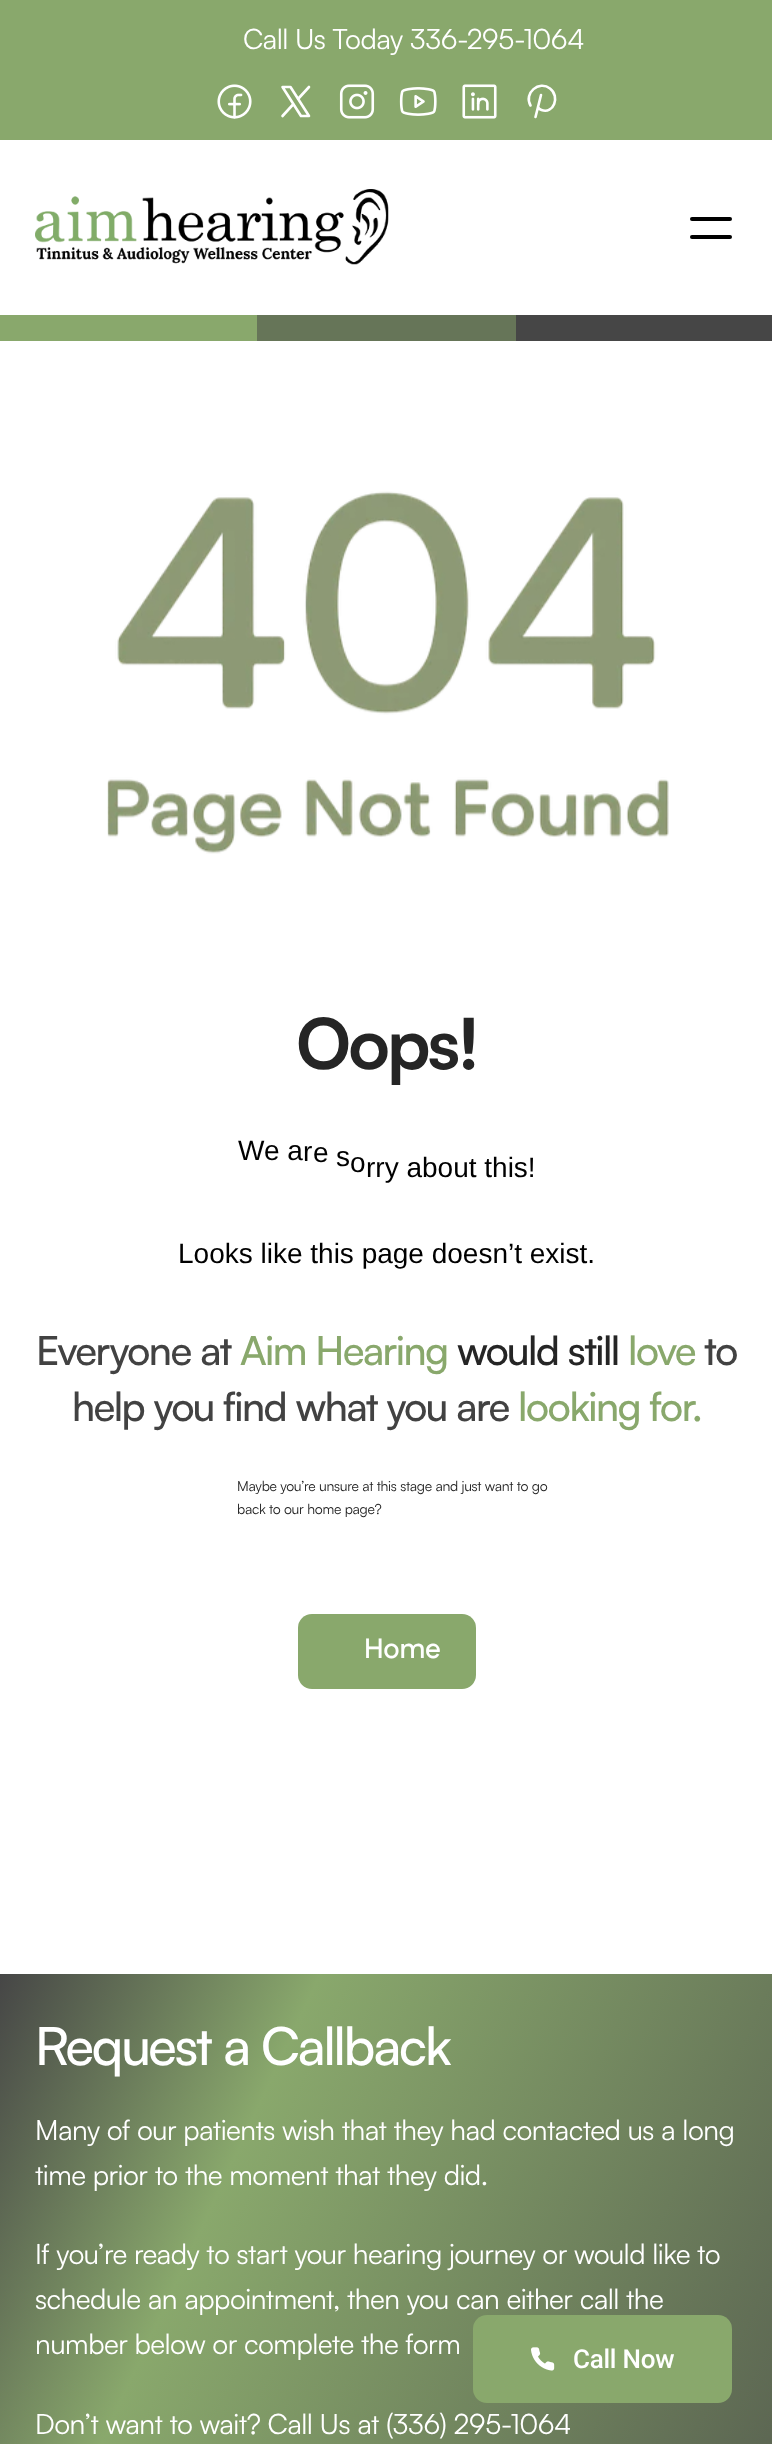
<?xml version="1.0" encoding="UTF-8"?>
<svg xmlns="http://www.w3.org/2000/svg" width="772" height="2444">
    <defs>
        <linearGradient id="g1" gradientUnits="userSpaceOnUse" x1="-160" y1="2317" x2="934" y2="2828"><stop offset="0" stop-color="#464646"/><stop offset="0.24" stop-color="#89A86C"/><stop offset="1" stop-color="#464646"/></linearGradient>
    </defs>
    <rect width="100%" height="100%" fill="#FFFFFF"/>
    <rect x="0" y="0" width="772" height="140" fill="#89A86C"/>
    <text x="243" y="49" font-family="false" font-size="28" letter-spacing="-0.55" fill="#FFFFFF">Call Us Today 336-295-1064</text>
    <image x="217" y="84" width="35" height="35" href="img_01.png"/>
    <path d="M 282.5 87 H 290.5 L 309 116 H 301 Z M 293.5 104 L 282.5 116 M 309 87 L 298 99" fill="none" stroke="#FFFFFF" stroke-width="2.6" stroke-linecap="round" stroke-linejoin="round"/>
    <image x="339" y="84" width="36" height="35" href="img_02.png"/>
    <image x="399" y="87" width="38" height="29" href="img_03.png"/>
    <image x="462" y="84" width="35" height="35" href="img_04.png"/>
    <path d="M 541 95 L 535.5 117 M 530.5 105.5 C 523.5 93 539 80 550 88.5 C 560.5 96.5 553.5 114.5 541.5 110 C 540 109.5 538.5 108.5 538 107" fill="none" stroke="#FFFFFF" stroke-width="2.6" stroke-linecap="round" stroke-linejoin="round"/>
    <image x="35" y="189" width="354" height="76" href="img_05.png"/>
    <rect x="690" y="217" width="42" height="4" rx="2" fill="#000000"/>
    <rect x="690" y="235" width="42" height="4" rx="2" fill="#000000"/>
    <rect x="0" y="315" width="257" height="26" fill="#89A86C"/>
    <rect x="257" y="315" width="259" height="26" fill="#667558"/>
    <rect x="516" y="315" width="256" height="26" fill="#464646"/>
    <image x="107" y="491" width="562" height="363" href="img_06.png"/>
    <text x="296" y="1069" font-family="false" font-size="70" font-weight="700" letter-spacing="-2.75" fill="#252525">Oops!</text>
    <text x="238" y="1160" font-family="Liberation Sans" font-size="28" fill="#000000">We a</text>
    <text x="303" y="1161" font-family="Liberation Sans" font-size="28" fill="#000000">r</text>
    <text x="313" y="1162" font-family="Liberation Sans" font-size="28" fill="#000000">e</text>
    <text x="336" y="1166" font-family="Liberation Sans" font-size="28" fill="#000000">s</text>
    <text x="350" y="1172" font-family="Liberation Sans" font-size="28" fill="#000000">o</text>
    <text x="366" y="1177" font-family="Liberation Sans" font-size="28" fill="#000000">rry about this!</text>
    <text x="178" y="1263" font-family="Liberation Sans" font-size="28" fill="#000000">Looks like this page doesn’t exist.</text>
    <text x="36" y="1365" font-family="Satoshi" font-size="40.25" font-weight="500" letter-spacing="-1.6" fill="#424242">Everyone at</text>
    <text x="240" y="1365" font-family="Satoshi" font-size="40.25" font-weight="500" letter-spacing="-1.6" fill="#89A86C">Aim Hearing</text>
    <text x="457" y="1365" font-family="Satoshi" font-size="40.25" font-weight="500" letter-spacing="-1.6" fill="#252525">would still</text>
    <text x="628" y="1365" font-family="Satoshi" font-size="40.25" font-weight="500" letter-spacing="-1.6" fill="#89A86C">love</text>
    <text x="704" y="1365" font-family="Satoshi" font-size="40.25" font-weight="500" letter-spacing="-1.6" fill="#424242">to</text>
    <text x="72" y="1421" font-family="Satoshi" font-size="40.25" font-weight="500" letter-spacing="-1.6" fill="#424242">help you find what you are</text>
    <text x="518" y="1421" font-family="Satoshi" font-size="40.25" font-weight="500" letter-spacing="-1.6" fill="#89A86C">looking for.</text>
    <text font-family="false" font-size="14" letter-spacing="-0.28" fill="#252525">
        <tspan x="237" y="1491">Maybe you’re unsure at this stage and just want to go</tspan>
        <tspan x="237" y="1514">back to our home page?</tspan>
    </text>
    <rect x="298" y="1614" width="178" height="75" rx="14" fill="#89A86C"/>
    <text x="364" y="1658" font-family="Fustat" font-size="28" font-weight="600" letter-spacing="-0.28" fill="#FFFFFF">Home</text>
    <rect x="0" y="1974" width="772" height="470" fill="url(#g1)"/>
    <text x="35" y="2065" font-family="Satoshi" font-size="52.5" font-weight="500" letter-spacing="-2.1" fill="#FFFFFF">Request a Callback</text>
    <text font-family="false" font-size="28" letter-spacing="-0.55" fill="#FFFFFF">
        <tspan x="35" y="2140">Many of our patients wish that they had contacted us a long</tspan>
        <tspan x="35" y="2185">time prior to the moment that they did.</tspan>
    </text>
    <text font-family="false" font-size="28" letter-spacing="-0.55" fill="#FFFFFF">
        <tspan x="35" y="2264">If you’re ready to start your hearing journey or would like to</tspan>
        <tspan x="35" y="2309">schedule an appointment, then you can either call the</tspan>
        <tspan x="35" y="2354">number below or complete the form</tspan>
    </text>
    <text x="35" y="2434" font-family="false" font-size="28" letter-spacing="-0.55" fill="#FFFFFF">Don’t want to wait? Call Us at (336) 295-1064</text>
    <rect x="473" y="2315" width="259" height="88" rx="14" fill="#89A86C"/>
    <image x="531" y="2347" width="24" height="24" href="img_07.png"/>
    <text x="573" y="2368" font-family="Roboto" font-size="26" font-weight="500" letter-spacing="-0.25" fill="#FFFFFF">Call Now</text>
</svg>
